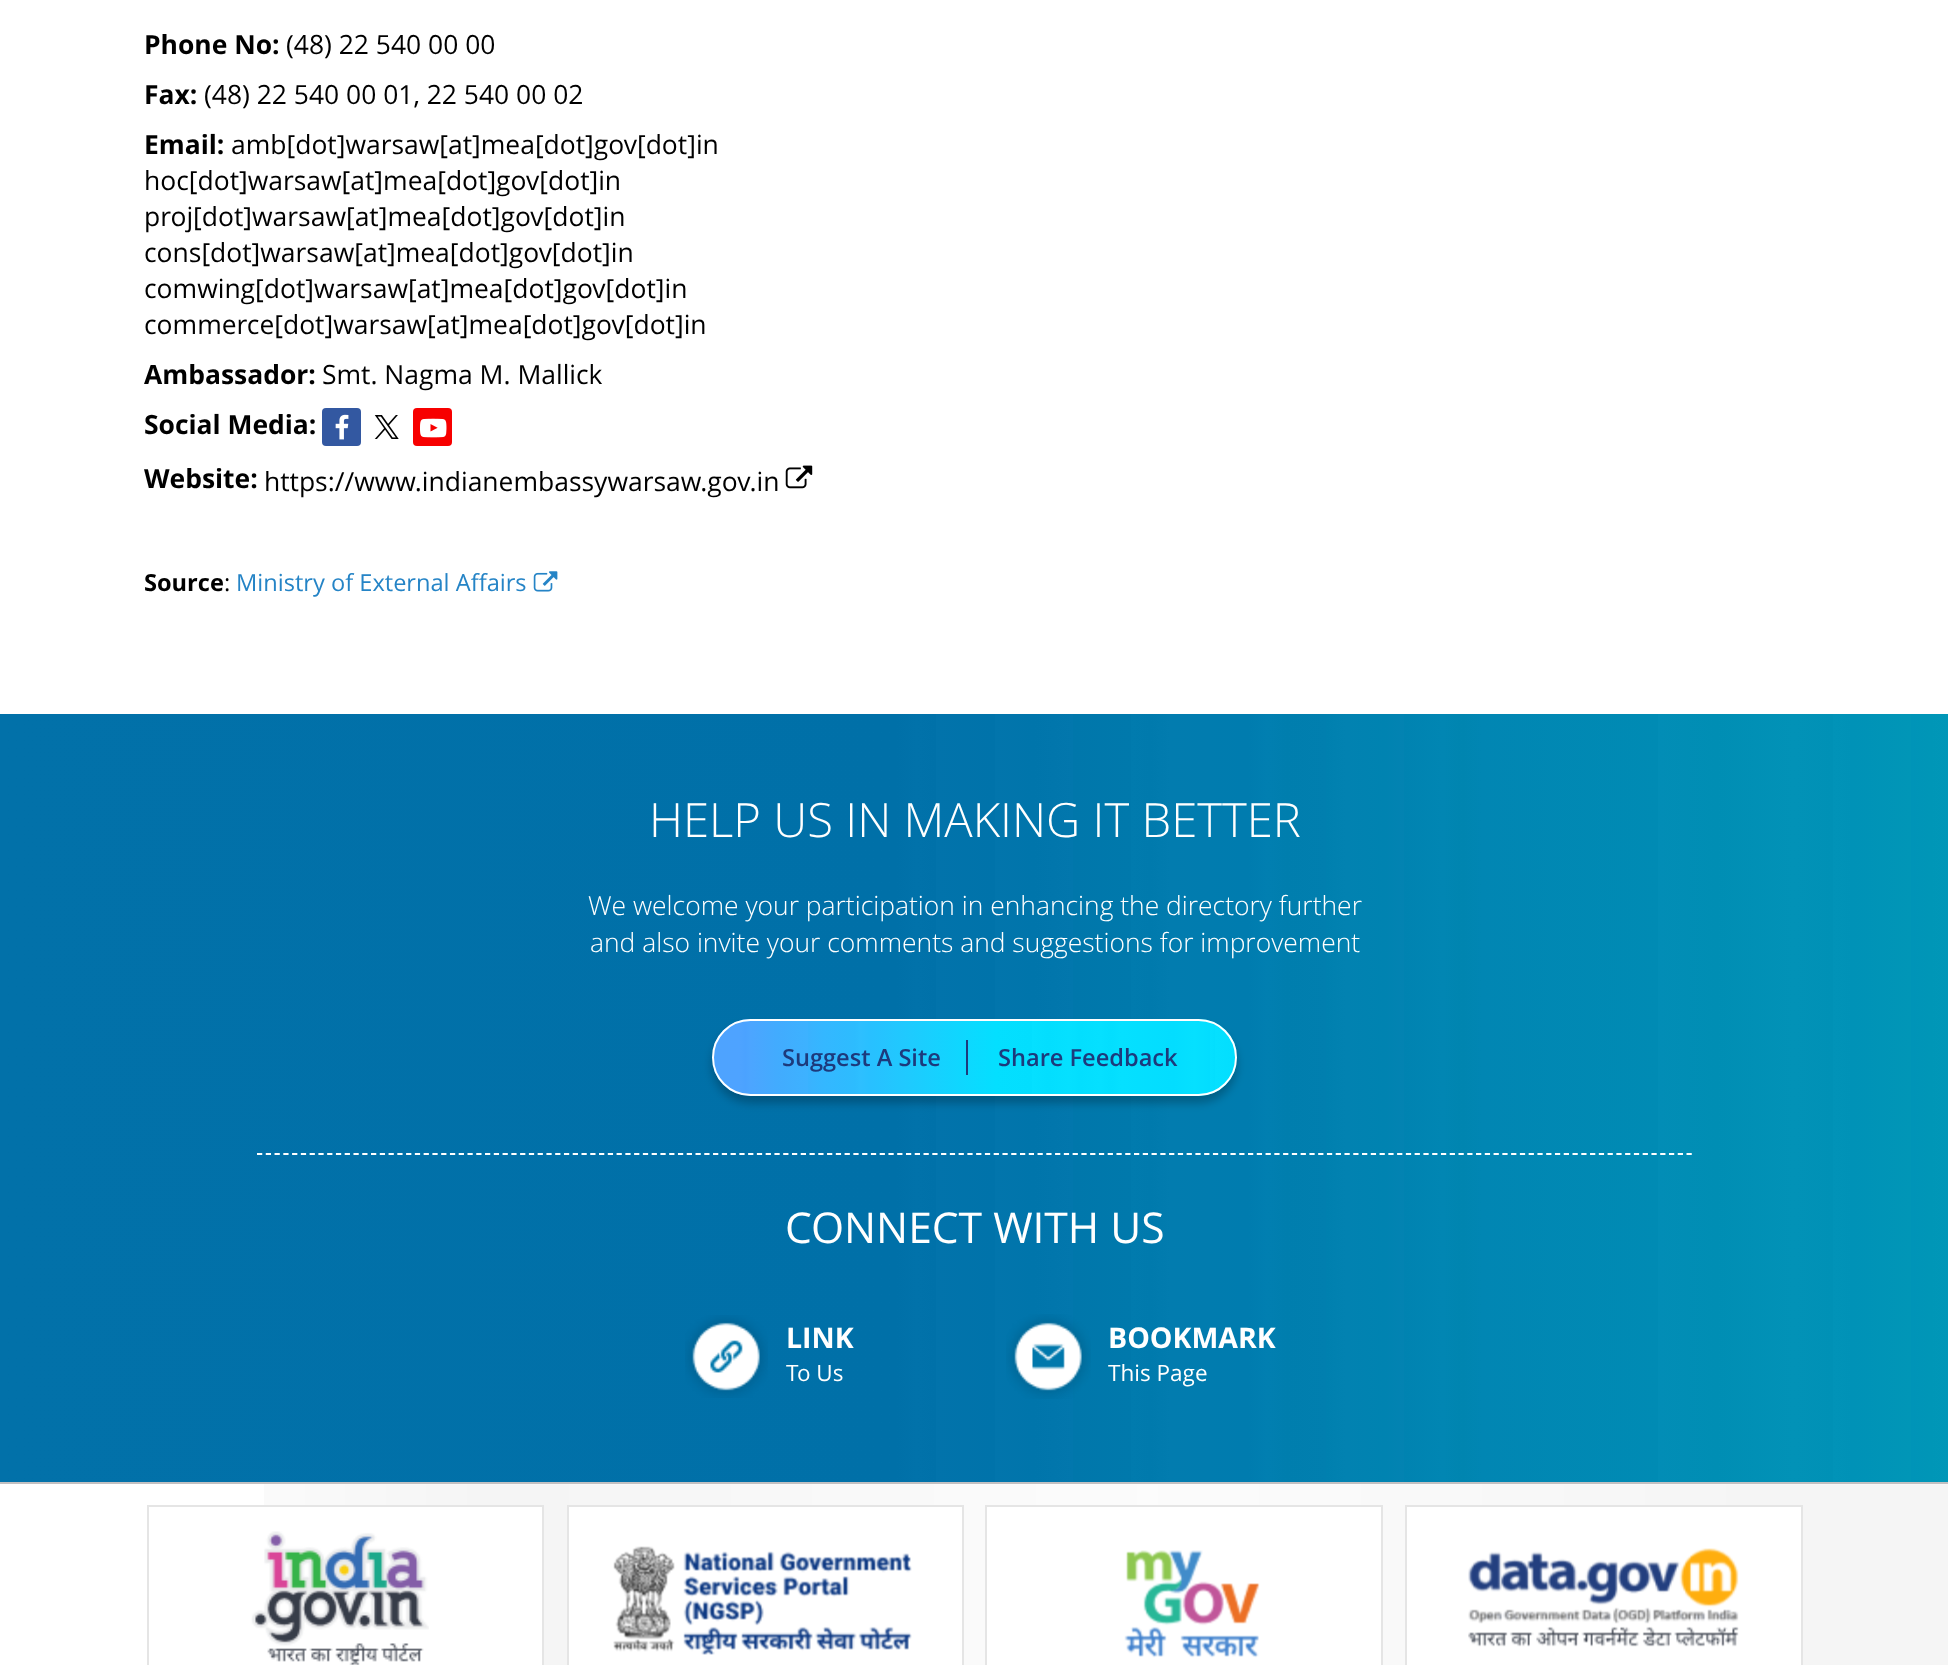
<?xml version="1.0" encoding="UTF-8"?>
<svg xmlns="http://www.w3.org/2000/svg" width="1948" height="1665">
    <defs>
        <linearGradient id="g1" gradientUnits="userSpaceOnUse" x1="0" y1="1098" x2="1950" y2="1098"><stop offset="0" stop-color="#000000"/><stop offset="0" stop-color="#0170A8"/><stop offset="0" stop-color="#0271A9"/><stop offset="0.46" stop-color="#0070A8"/><stop offset="0.47" stop-color="#0172AA"/><stop offset="0.48" stop-color="#0071A9"/><stop offset="0.48" stop-color="#0273AB"/><stop offset="0.51" stop-color="#0073AA"/><stop offset="0.51" stop-color="#0275AC"/><stop offset="0.53" stop-color="#0075AB"/><stop offset="0.55" stop-color="#0277AD"/><stop offset="0.55" stop-color="#0077AB"/><stop offset="0.58" stop-color="#0079AC"/><stop offset="0.58" stop-color="#017BAE"/><stop offset="0.59" stop-color="#007AAD"/><stop offset="0.6" stop-color="#027CAF"/><stop offset="0.64" stop-color="#007CAF"/><stop offset="0.65" stop-color="#017FB1"/><stop offset="0.66" stop-color="#007EAE"/><stop offset="0.68" stop-color="#017FAF"/><stop offset="0.68" stop-color="#0280B2"/><stop offset="0.68" stop-color="#0080AF"/><stop offset="0.69" stop-color="#0282B1"/><stop offset="0.71" stop-color="#0083B1"/><stop offset="0.72" stop-color="#0383B2"/><stop offset="0.72" stop-color="#0083B1"/><stop offset="0.74" stop-color="#0186B3"/><stop offset="0.75" stop-color="#0085B0"/><stop offset="0.76" stop-color="#0186B3"/><stop offset="0.85" stop-color="#008BB4"/><stop offset="0.85" stop-color="#028DB6"/><stop offset="0.88" stop-color="#008EB4"/><stop offset="0.92" stop-color="#0292B7"/><stop offset="0.94" stop-color="#0091B6"/><stop offset="0.94" stop-color="#0193B8"/><stop offset="0.95" stop-color="#0092B7"/><stop offset="0.98" stop-color="#0196B7"/><stop offset="0.98" stop-color="#0296BA"/><stop offset="0.98" stop-color="#0094B8"/><stop offset="0.99" stop-color="#0096B7"/><stop offset="0.99" stop-color="#0296BA"/><stop offset="0.99" stop-color="#0096B7"/><stop offset="1" stop-color="#0197B8"/><stop offset="1" stop-color="#000002"/></linearGradient>
        <filter id="blur1" x="-50%" y="-200%" width="200%" height="500%"><feGaussianBlur stdDeviation="5"/></filter>
        <clipPath id="clip1"><rect x="712" y="1019" width="525" height="77" rx="38.5"/></clipPath>
        <linearGradient id="g2" gradientUnits="userSpaceOnUse" x1="714" y1="1057" x2="1236" y2="1057"><stop offset="0" stop-color="#4EA3FE"/><stop offset="0.05" stop-color="#4EA3FF"/><stop offset="0.06" stop-color="#4BA2FF"/><stop offset="0.07" stop-color="#4CA5FF"/><stop offset="0.12" stop-color="#42ABFE"/><stop offset="0.18" stop-color="#3DB2FF"/><stop offset="0.18" stop-color="#3AB2FE"/><stop offset="0.21" stop-color="#34B7FF"/><stop offset="0.27" stop-color="#2DBCFE"/><stop offset="0.28" stop-color="#2EBFFF"/><stop offset="0.3" stop-color="#28C0FF"/><stop offset="0.37" stop-color="#1FCAFE"/><stop offset="0.54" stop-color="#04DFFF"/><stop offset="0.61" stop-color="#03DEFE"/><stop offset="0.61" stop-color="#05E0FF"/><stop offset="0.64" stop-color="#03DEFE"/><stop offset="0.68" stop-color="#05E0FF"/><stop offset="0.7" stop-color="#03DEFE"/><stop offset="0.74" stop-color="#05E0FF"/><stop offset="0.76" stop-color="#03DEFE"/><stop offset="0.78" stop-color="#05E0FF"/><stop offset="0.88" stop-color="#03DDFF"/><stop offset="0.92" stop-color="#05E0FF"/><stop offset="0.95" stop-color="#03DDFF"/><stop offset="0.95" stop-color="#05E0FF"/><stop offset="0.96" stop-color="#03DEFE"/><stop offset="0.96" stop-color="#05E0FF"/><stop offset="1" stop-color="#03DEFE"/></linearGradient>
    </defs>
    <rect width="100%" height="100%" fill="#FFFFFF"/>
    <text x="144" y="54" font-family="Open Sans" font-size="26.45" font-weight="700" fill="#000000">Phone No:</text>
    <text x="286" y="54" font-family="Open Sans" font-size="26.45" fill="#000000">(48) 22 540 00 00</text>
    <text x="144" y="104" font-family="Open Sans" font-size="26.45" font-weight="700" fill="#000000">Fax:</text>
    <text x="204" y="104" font-family="Open Sans" font-size="26.45" fill="#000000">(48) 22 540 00 01, 22 540 00 02</text>
    <text x="144" y="154" font-family="Open Sans" font-size="26.45" font-weight="700" fill="#000000">Email:</text>
    <text x="231" y="154" font-family="Open Sans" font-size="26.45" fill="#000000">amb[dot]warsaw[at]mea[dot]gov[dot]in</text>
    <text font-family="Open Sans" font-size="26.45" fill="#000000">
        <tspan x="144" y="190">hoc[dot]warsaw[at]mea[dot]gov[dot]in</tspan>
        <tspan x="144" y="226">proj[dot]warsaw[at]mea[dot]gov[dot]in</tspan>
        <tspan x="144" y="262">cons[dot]warsaw[at]mea[dot]gov[dot]in</tspan>
        <tspan x="144" y="298">comwing[dot]warsaw[at]mea[dot]gov[dot]in</tspan>
        <tspan x="144" y="334">commerce[dot]warsaw[at]mea[dot]gov[dot]in</tspan>
    </text>
    <text x="144" y="384" font-family="Open Sans" font-size="26.45" font-weight="700" fill="#000000">Ambassador:</text>
    <text x="322" y="384" font-family="Open Sans" font-size="26.45" fill="#000000">Smt. Nagma M. Mallick</text>
    <text x="144" y="434" font-family="Open Sans" font-size="26.45" font-weight="700" fill="#000000">Social Media:</text>
    <rect x="322" y="408" width="39" height="38" rx="4" fill="#3358A1"/>
    <image x="335" y="414" width="14" height="26" href="img_01.png"/>
    <image x="374" y="415" width="25" height="24" href="img_02.png"/>
    <rect x="413" y="408" width="39" height="38" rx="4" fill="#F70000"/>
    <image x="420" y="418" width="27" height="20" href="img_03.png"/>
    <text x="144" y="488" font-family="Open Sans" font-size="26.45" font-weight="700" fill="#000000">Website:</text>
    <text x="264" y="491" font-family="Open Sans" font-size="26.45" fill="#000000">https://www.indianembassywarsaw.gov.in</text>
    <image x="785" y="465" width="28" height="24" href="img_04.png"/>
    <text x="144" y="591" font-family="Open Sans" font-size="23.6" font-weight="700" fill="#000000">Source</text>
    <text x="224" y="591" font-family="Open Sans" font-size="23.6" fill="#000000">:</text>
    <text x="236" y="591" font-family="Open Sans" font-size="23.6" fill="#2584C6">Ministry of External Affairs</text>
    <image x="533" y="571" width="25" height="21" href="img_05.png"/>
    <rect x="0" y="714" width="1948" height="768" fill="url(#g1)"/>
    <text x="649" y="837" font-family="Open Sans" font-size="47.25" font-weight="300" fill="#FFFFFF">HELP US IN MAKING IT BETTER</text>
    <text x="588" y="915" font-family="Open Sans" font-size="26.45" font-weight="300" fill="#FFFFFF">We welcome your participation in enhancing the directory further</text>
    <text x="590" y="952" font-family="Open Sans" font-size="26.45" font-weight="300" fill="#FFFFFF">and also invite your comments and suggestions for improvement</text>
    <rect x="712" y="1026" width="525" height="77" rx="38.5" fill="#000000" fill-opacity="0.25" filter="url(#blur1)"/>
    <g clip-path="url(#clip1)">
        <rect x="714" y="1019" width="522" height="77" fill="url(#g2)"/>
    </g>
    <rect x="713" y="1020" width="523" height="75" rx="37.5" fill="none" stroke="#FFFFFF" stroke-width="2"/>
    <text x="782" y="1066" font-family="Open Sans" font-size="23.6" font-weight="600" fill="#1D3A7C">Suggest A Site</text>
    <rect x="966" y="1040" width="2" height="35" fill="#1D3A7C"/>
    <text x="998" y="1066" font-family="Open Sans" font-size="23.6" font-weight="600" fill="#1D3A7C">Share Feedback</text>
    <path d="M 257 1154 H 1692" fill="none" stroke="#FFFFFF" stroke-width="1.8" stroke-dasharray="5.25 3.52"/>
    <text x="785" y="1243" font-family="Open Sans" font-size="42.5" fill="#FFFFFF">CONNECT WITH US</text>
    <image x="685" y="1315" width="83" height="83" href="img_06.png"/>
    <text x="786" y="1348" font-family="Open Sans" font-size="28.5" font-weight="700" fill="#FFFFFF">LINK</text>
    <text x="786" y="1381" font-family="Open Sans" font-size="22.5" fill="#FFFFFF">To Us</text>
    <image x="1006" y="1314" width="85" height="85" href="img_07.png"/>
    <text x="1108" y="1348" font-family="Open Sans" font-size="28.5" font-weight="700" fill="#FFFFFF">BOOKMARK</text>
    <text x="1108" y="1381" font-family="Open Sans" font-size="22.5" fill="#FFFFFF">This Page</text>
    <image x="264" y="1484" width="1684" height="181" href="img_08.png"/>
    <rect x="0" y="1482" width="1948" height="2" fill="#C2C0C1"/>
    <rect x="264" y="1507" width="278" height="158" fill="#FFFFFF"/>
    <rect x="148" y="1506" width="395" height="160" fill="none" stroke="#E5E5E5" stroke-width="2"/>
    <image x="251" y="1531" width="178" height="134" href="img_09.png"/>
    <rect x="568" y="1506" width="395" height="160" fill="#FFFFFF" stroke="#E5E5E5" stroke-width="2"/>
    <image x="613" y="1546" width="299" height="109" href="img_10.png"/>
    <rect x="986" y="1506" width="396" height="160" fill="#FFFFFF" stroke="#E5E5E5" stroke-width="2"/>
    <image x="1124" y="1550" width="136" height="108" href="img_11.png"/>
    <rect x="1406" y="1506" width="396" height="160" fill="#FFFFFF" stroke="#E5E5E5" stroke-width="2"/>
    <image x="1468" y="1548" width="271" height="99" href="img_12.png"/>
</svg>
